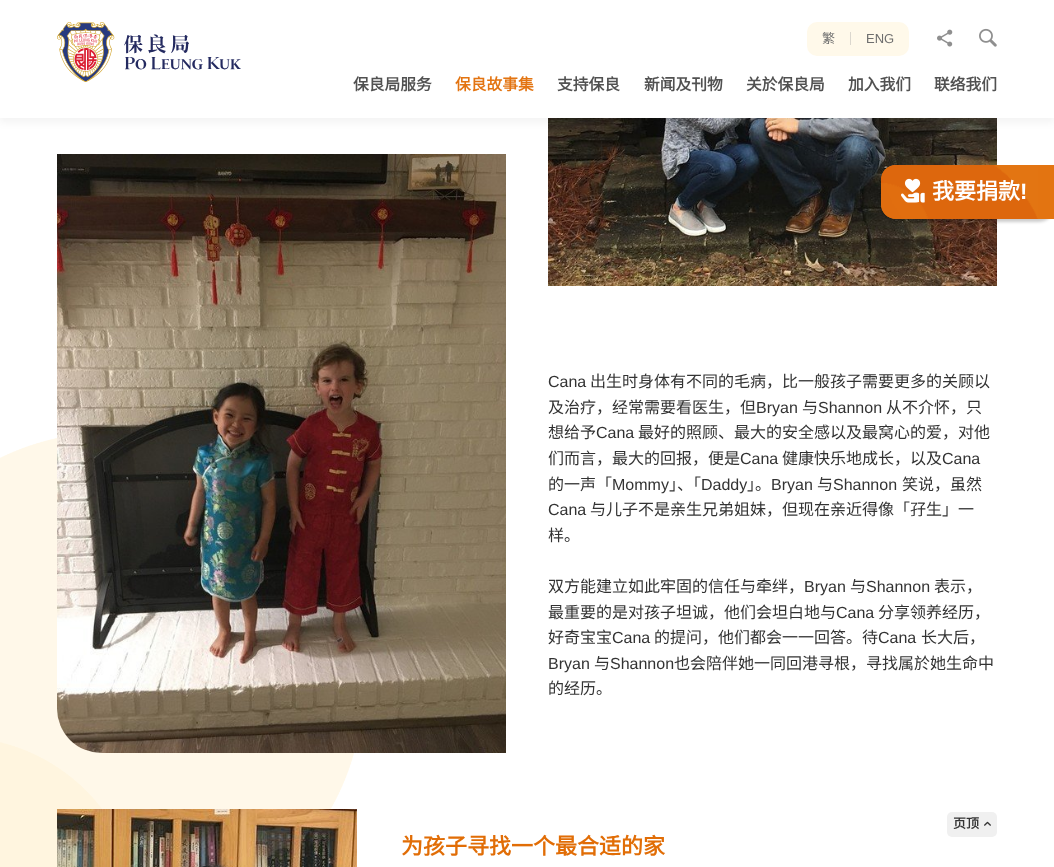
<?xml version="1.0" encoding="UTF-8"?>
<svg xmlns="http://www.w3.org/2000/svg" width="1054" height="867">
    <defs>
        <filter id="blur1" x="-50%" y="-200%" width="200%" height="500%"><feGaussianBlur stdDeviation="4.5"/></filter>
        <filter id="blur2" x="-50%" y="-200%" width="200%" height="500%"><feGaussianBlur stdDeviation="1.5"/></filter>
    </defs>
    <rect width="100%" height="100%" fill="#FFFFFF"/>
    <image x="548" y="118" width="449" height="168" href="img_08.png"/>
    <rect x="-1" y="2" width="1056" height="120" fill="#221E1F" fill-opacity="0.05" filter="url(#blur1)"/>
    <rect x="0" y="0" width="1054" height="118" fill="#FFFFFF"/>
    <image x="57" y="22" width="184" height="60" href="img_01.png"/>
    <rect x="807" y="22" width="102" height="34" rx="10" fill="#FFF9EA"/>
    <rect x="850" y="32" width="1" height="13" fill="#DBD7CE"/>
    <text x="822" y="43" font-family="Noto Sans CJK HK" font-size="13" fill="#6E6E6E">繁</text>
    <text x="866" y="43" font-family="Liberation Sans" font-size="13" fill="#6E6E6E">ENG</text>
    <image x="937" y="29" width="16" height="18" href="img_02.png"/>
    <image x="979" y="28" width="18" height="19" href="img_03.png"/>
    <text x="353" y="90" font-family="Noto Sans CJK SC" font-size="15.75" font-weight="700" fill="#515151">保良局服务</text>
    <text x="455" y="90" font-family="Noto Sans CJK SC" font-size="15.75" font-weight="700" fill="#E37411">保良故事集</text>
    <text x="557" y="90" font-family="Noto Sans CJK SC" font-size="15.75" font-weight="700" fill="#515151">支持保良</text>
    <text x="644" y="90" font-family="Noto Sans CJK SC" font-size="15.75" font-weight="700" fill="#515151">新闻及刊物</text>
    <text x="746" y="90" font-family="Noto Sans CJK SC" font-size="15.75" font-weight="700" fill="#515151">关於保良局</text>
    <text x="848" y="90" font-family="Noto Sans CJK SC" font-size="15.75" font-weight="700" fill="#515151">加入我们</text>
    <text x="934" y="90" font-family="Noto Sans CJK SC" font-size="15.75" font-weight="700" fill="#515151">联络我们</text>
    <image x="0" y="438" width="354" height="429" href="img_04.png"/>
    <rect x="881" y="168" width="173" height="54" rx="15" fill="#000000" fill-opacity="0.2" filter="url(#blur2)"/>
    <path d="M 896 165 H 1054 V 219 H 896 C 887.5 219 881 212.5 881 204 V 180 C 881 171.5 887.5 165 896 165 Z" fill="#E37411"/>
    <image x="881" y="165" width="157" height="54" href="img_05.png"/>
    <image x="901" y="178" width="24" height="25" href="img_06.png"/>
    <text x="932" y="199" font-family="Noto Sans CJK SC" font-size="22" font-weight="700" fill="#FFFFFF">我要捐款</text>
    <text x="1020" y="199" font-family="Liberation Sans" font-size="22" font-weight="700" fill="#FFFFFF">!</text>
    <image x="57" y="154" width="449" height="599" href="img_07.png"/>
    <text x="548" y="387" font-family="Liberation Sans" font-size="16" fill="#333333">Cana</text>
    <text x="590" y="387" font-family="Noto Sans CJK SC" font-size="16" fill="#333333">出生时身体有不同的毛病，比一般孩子需要更多的关顾以</text>
    <text x="548" y="413" font-family="Noto Sans CJK SC" font-size="16" fill="#333333">及治疗，经常需要看医生，但</text>
    <text x="756" y="413" font-family="Liberation Sans" font-size="16" fill="#333333">Bryan</text>
    <text x="802" y="413" font-family="Noto Sans CJK SC" font-size="16" fill="#333333">与</text>
    <text x="818" y="413" font-family="Liberation Sans" font-size="16" fill="#333333">Shannon</text>
    <text x="886" y="413" font-family="Noto Sans CJK SC" font-size="16" fill="#333333">从不介怀，只</text>
    <text x="548" y="438" font-family="Noto Sans CJK SC" font-size="16" fill="#333333">想给予</text>
    <text x="596" y="438" font-family="Liberation Sans" font-size="16" fill="#333333">Cana</text>
    <text x="638" y="438" font-family="Noto Sans CJK SC" font-size="16" fill="#333333">最好的照顾、最大的安全感以及最窝心的爱，对他</text>
    <text x="548" y="464" font-family="Noto Sans CJK SC" font-size="16" fill="#333333">们而言，最大的回报，便是</text>
    <text x="740" y="464" font-family="Liberation Sans" font-size="16" fill="#333333">Cana</text>
    <text x="782" y="464" font-family="Noto Sans CJK SC" font-size="16" fill="#333333">健康快乐地成长，以及</text>
    <text x="942" y="464" font-family="Liberation Sans" font-size="16" fill="#333333">Cana</text>
    <text x="548" y="490" font-family="Noto Sans CJK SC" font-size="16" fill="#333333">的一声「</text>
    <text x="612" y="490" font-family="Liberation Sans" font-size="16" fill="#333333">Mommy</text>
    <text x="669" y="490" font-family="Noto Sans CJK SC" font-size="16" fill="#333333">」、「</text>
    <text x="701" y="490" font-family="Liberation Sans" font-size="16" fill="#333333">Daddy</text>
    <text x="747" y="490" font-family="Noto Sans CJK SC" font-size="16" fill="#333333">」。</text>
    <text x="771" y="490" font-family="Liberation Sans" font-size="16" fill="#333333">Bryan</text>
    <text x="817" y="490" font-family="Noto Sans CJK SC" font-size="16" fill="#333333">与</text>
    <text x="833" y="490" font-family="Liberation Sans" font-size="16" fill="#333333">Shannon</text>
    <text x="902" y="490" font-family="Noto Sans CJK SC" font-size="16" fill="#333333">笑说，虽然</text>
    <text x="548" y="515" font-family="Liberation Sans" font-size="16" fill="#333333">Cana</text>
    <text x="590" y="515" font-family="Noto Sans CJK SC" font-size="16" fill="#333333">与儿子不是亲生兄弟姐妹，但现在亲近得像「孖生」一</text>
    <text x="548" y="541" font-family="Noto Sans CJK SC" font-size="16" fill="#333333">样。</text>
    <text x="548" y="592" font-family="Noto Sans CJK SC" font-size="16" fill="#333333">双方能建立如此牢固的信任与牵绊，</text>
    <text x="804" y="592" font-family="Liberation Sans" font-size="16" fill="#333333">Bryan</text>
    <text x="850" y="592" font-family="Noto Sans CJK SC" font-size="16" fill="#333333">与</text>
    <text x="866" y="592" font-family="Liberation Sans" font-size="16" fill="#333333">Shannon</text>
    <text x="934" y="592" font-family="Noto Sans CJK SC" font-size="16" fill="#333333">表示，</text>
    <text x="548" y="618" font-family="Noto Sans CJK SC" font-size="16" fill="#333333">最重要的是对孩子坦诚，他们会坦白地与</text>
    <text x="836" y="618" font-family="Liberation Sans" font-size="16" fill="#333333">Cana</text>
    <text x="878" y="618" font-family="Noto Sans CJK SC" font-size="16" fill="#333333">分享领养经历，</text>
    <text x="548" y="643" font-family="Noto Sans CJK SC" font-size="16" fill="#333333">好奇宝宝</text>
    <text x="612" y="643" font-family="Liberation Sans" font-size="16" fill="#333333">Cana</text>
    <text x="654" y="643" font-family="Noto Sans CJK SC" font-size="16" fill="#333333">的提问，他们都会一一回答。待</text>
    <text x="878" y="643" font-family="Liberation Sans" font-size="16" fill="#333333">Cana</text>
    <text x="921" y="643" font-family="Noto Sans CJK SC" font-size="16" fill="#333333">长大后，</text>
    <text x="548" y="669" font-family="Liberation Sans" font-size="16" fill="#333333">Bryan</text>
    <text x="594" y="669" font-family="Noto Sans CJK SC" font-size="16" fill="#333333">与</text>
    <text x="610" y="669" font-family="Liberation Sans" font-size="16" fill="#333333">Shannon</text>
    <text x="674" y="669" font-family="Noto Sans CJK SC" font-size="16" fill="#333333">也会陪伴她一同回港寻根，寻找属於她生命中</text>
    <text x="548" y="694" font-family="Noto Sans CJK SC" font-size="16" fill="#333333">的经历。</text>
    <image x="57" y="809" width="300" height="58" href="img_09.png"/>
    <text x="401" y="854" font-family="Noto Sans CJK SC" font-size="22" font-weight="700" fill="#E16D06">为孩子寻找一个最合适的家</text>
    <rect x="947" y="812" width="50" height="25" rx="5" fill="#F0F0F0"/>
    <text x="953" y="828" font-family="Noto Sans CJK SC" font-size="13" font-weight="700" fill="#333333">页顶</text>
    <image x="984" y="821" width="7" height="5" href="img_10.png"/>
</svg>
